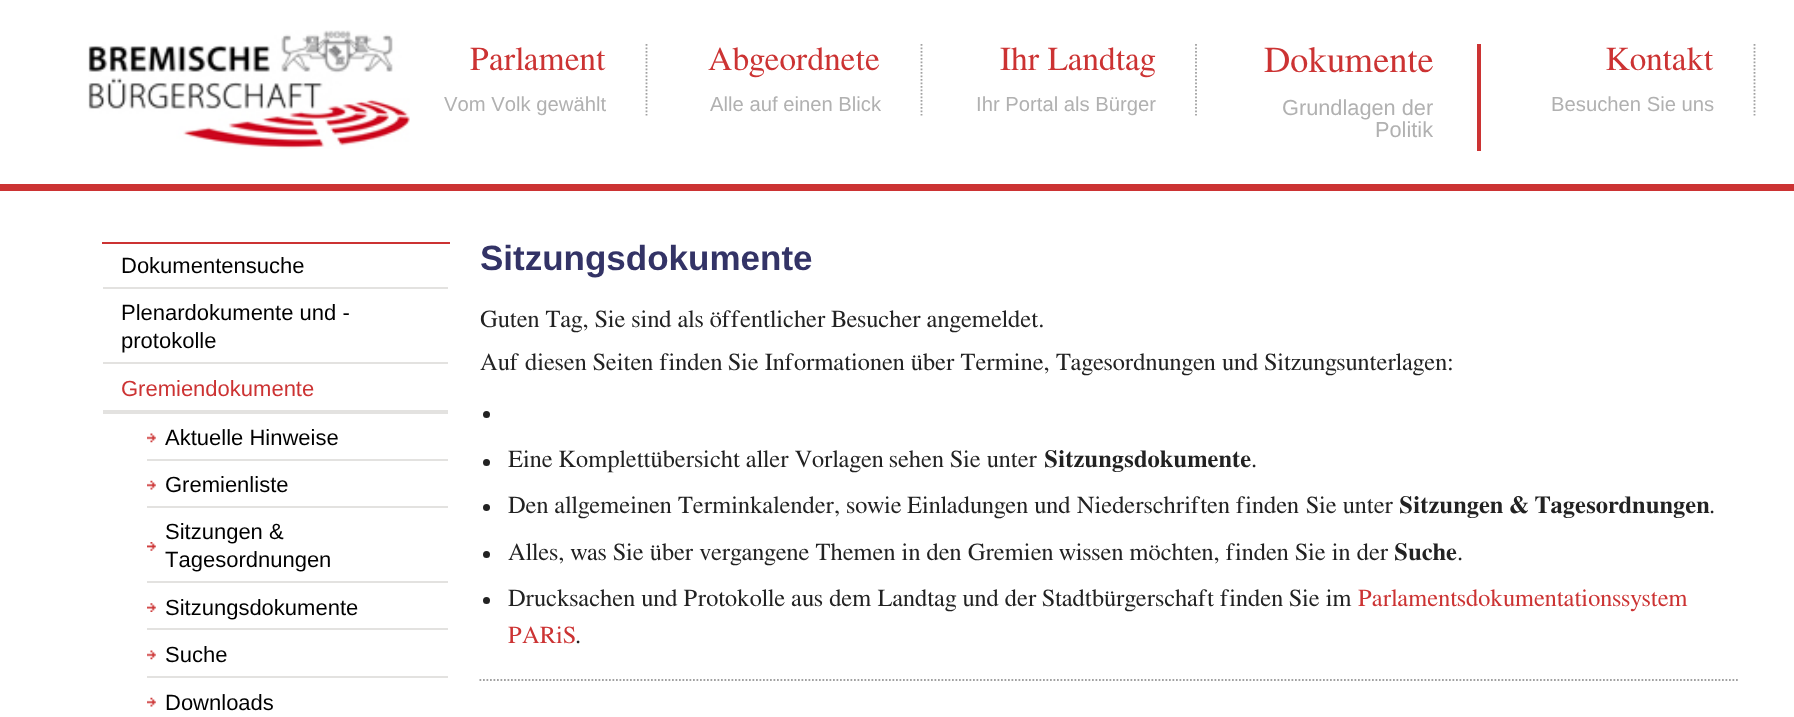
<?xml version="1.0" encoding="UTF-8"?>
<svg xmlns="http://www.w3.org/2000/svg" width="1794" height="717">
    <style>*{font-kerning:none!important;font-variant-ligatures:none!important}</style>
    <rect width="100%" height="100%" fill="#FFFFFF"/>
    <rect x="0" y="184" width="1794" height="7" fill="#CC3333"/>
    <image x="88" y="30" width="322" height="119" href="img_01.png"/>
    <path d="M 646.5 44 V 115.5" fill="none" stroke="#A1A1A1" stroke-width="1.8" stroke-dasharray="1.75 1.75"/>
    <text x="470" y="70" font-family="FreeSerif" font-size="33.5" fill="#CC3333">Parlament</text>
    <text x="444" y="111" font-family="Liberation Sans" font-size="20.25" fill="#B1B1B1">Vom Volk gewählt</text>
    <path d="M 921.5 44 V 115.5" fill="none" stroke="#A1A1A1" stroke-width="1.8" stroke-dasharray="1.75 1.75"/>
    <text x="708" y="70" font-family="FreeSerif" font-size="33.5" fill="#CC3333">Abgeordnete</text>
    <text x="710" y="111" font-family="Liberation Sans" font-size="20.25" fill="#B1B1B1">Alle auf einen Blick</text>
    <path d="M 1196 44 V 115.5" fill="none" stroke="#A1A1A1" stroke-width="1.8" stroke-dasharray="1.75 1.75"/>
    <text x="1000" y="70" font-family="FreeSerif" font-size="33.5" fill="#CC3333">Ihr Landtag</text>
    <text x="976" y="111" font-family="Liberation Sans" font-size="20.25" fill="#B1B1B1">Ihr Portal als Bürger</text>
    <rect x="1477" y="44" width="4" height="107" fill="#CC3333"/>
    <text x="1264" y="72" font-family="FreeSerif" font-size="36.5" fill="#CC3333">Dokumente</text>
    <text x="1282" y="115" font-family="Liberation Sans" font-size="21.75" fill="#B1B1B1">Grundlagen der</text>
    <text x="1375" y="137" font-family="Liberation Sans" font-size="21.75" fill="#B1B1B1">Politik</text>
    <path d="M 1754.5 44 V 115.5" fill="none" stroke="#A1A1A1" stroke-width="1.8" stroke-dasharray="1.75 1.75"/>
    <text x="1606" y="70" font-family="FreeSerif" font-size="33.5" fill="#CC3333">Kontakt</text>
    <text x="1551" y="111" font-family="Liberation Sans" font-size="20.25" fill="#B1B1B1">Besuchen Sie uns</text>
    <rect x="102" y="242" width="348" height="2" fill="#CC3333"/>
    <rect x="103" y="287" width="345" height="2" fill="#E3E2E0"/>
    <text x="121" y="273" font-family="Liberation Sans" font-size="22" fill="#000000">Dokumentensuche</text>
    <rect x="103" y="362" width="345" height="2" fill="#E3E2E0"/>
    <text font-family="Liberation Sans" font-size="22" fill="#000000">
        <tspan x="121" y="320">Plenardokumente und -</tspan>
        <tspan x="121" y="348">protokolle</tspan>
    </text>
    <rect x="103" y="410" width="345" height="4" fill="#E3E2E0"/>
    <text x="121" y="396" font-family="Liberation Sans" font-size="22" fill="#CC3333">Gremiendokumente</text>
    <image x="147" y="433" width="9" height="10" href="img_02.png"/>
    <rect x="147" y="459" width="301" height="2" fill="#E3E2E0"/>
    <text x="165" y="445" font-family="Liberation Sans" font-size="22" fill="#000000">Aktuelle Hinweise</text>
    <image x="147" y="480" width="9" height="10" href="img_03.png"/>
    <rect x="147" y="506" width="301" height="2" fill="#E3E2E0"/>
    <text x="165" y="492" font-family="Liberation Sans" font-size="22" fill="#000000">Gremienliste</text>
    <image x="147" y="542" width="9" height="9" href="img_04.png"/>
    <rect x="147" y="581" width="301" height="2" fill="#E3E2E0"/>
    <text font-family="Liberation Sans" font-size="22" fill="#000000">
        <tspan x="165" y="539">Sitzungen &amp;</tspan>
        <tspan x="165" y="567">Tagesordnungen</tspan>
    </text>
    <image x="147" y="603" width="9" height="9" href="img_05.png"/>
    <rect x="147" y="628" width="301" height="2" fill="#E3E2E0"/>
    <text x="165" y="615" font-family="Liberation Sans" font-size="22" fill="#000000">Sitzungsdokumente</text>
    <image x="147" y="650" width="9" height="10" href="img_02.png"/>
    <rect x="147" y="676" width="301" height="2" fill="#E3E2E0"/>
    <text x="165" y="662" font-family="Liberation Sans" font-size="22" fill="#000000">Suche</text>
    <image x="147" y="697" width="9" height="10" href="img_03.png"/>
    <text x="165" y="710" font-family="Liberation Sans" font-size="22" fill="#000000">Downloads</text>
    <text x="480" y="270" font-family="Liberation Sans" font-size="35" font-weight="700" fill="#333366">Sitzungsdokumente</text>
    <text x="480" y="327" font-family="FreeSerif" font-size="24.5" fill="#222222">Guten Tag, Sie sind als öffentlicher</text>
    <text x="831" y="327" font-family="FreeSerif" font-size="24.5" fill="#222222">Besucher angemeldet.</text>
    <text x="480" y="370" font-family="FreeSerif" font-size="24.5" fill="#222222">Auf diesen Seiten finden</text>
    <text x="728" y="370" font-family="FreeSerif" font-size="24.5" fill="#222222">Sie Informationen über Termine,</text>
    <text x="1056" y="370" font-family="FreeSerif" font-size="24.5" fill="#222222">Tagesordnungen und Sitzungsunterlagen:</text>
    <circle cx="486.5" cy="414.5" r="3.5" fill="#222222"/>
    <circle cx="486.5" cy="462.5" r="3.5" fill="#222222"/>
    <text x="508" y="467" font-family="FreeSerif" font-size="24.5" fill="#222222">Eine Komplettübersicht aller Vorlagen</text>
    <text x="889" y="467" font-family="FreeSerif" font-size="24.5" fill="#222222">sehen Sie unter</text>
    <text x="1044" y="467" font-family="FreeSerif" font-size="24.5" font-weight="700" fill="#222222">Sitzungsdokumente</text>
    <text x="1251" y="467" font-family="FreeSerif" font-size="24.5" fill="#222222">.</text>
    <circle cx="486.5" cy="507.5" r="3.5" fill="#222222"/>
    <text x="508" y="513" font-family="FreeSerif" font-size="24.5" fill="#222222">Den allgemeinen Terminkalender, sowie</text>
    <text x="907" y="513" font-family="FreeSerif" font-size="24.5" fill="#222222">Einladungen und Niederschriften finden</text>
    <text x="1306" y="513" font-family="FreeSerif" font-size="24.5" fill="#222222">Sie unter</text>
    <text x="1399" y="513" font-family="FreeSerif" font-size="24.5" font-weight="700" fill="#222222">Sitzungen &amp; Tagesordnungen</text>
    <text x="1709" y="513" font-family="FreeSerif" font-size="24.5" fill="#222222">.</text>
    <circle cx="486.5" cy="554.5" r="3.5" fill="#222222"/>
    <text x="508" y="560" font-family="FreeSerif" font-size="24.5" fill="#222222">Alles, was Sie über vergangene Themen in den Gremien</text>
    <text x="1059" y="560" font-family="FreeSerif" font-size="24.5" fill="#222222">wissen möchten, finden</text>
    <text x="1295" y="560" font-family="FreeSerif" font-size="24.5" fill="#222222">Sie in der</text>
    <text x="1394" y="560" font-family="FreeSerif" font-size="24.5" font-weight="700" fill="#222222">Suche</text>
    <text x="1457" y="560" font-family="FreeSerif" font-size="24.5" fill="#222222">.</text>
    <circle cx="486.5" cy="600.5" r="3.5" fill="#222222"/>
    <text x="508" y="606" font-family="FreeSerif" font-size="24.5" fill="#222222">Drucksachen und Protokolle aus dem Landtag und der</text>
    <text x="1042" y="606" font-family="FreeSerif" font-size="24.5" fill="#222222">Stadtbürgerschaft finden</text>
    <text x="1289" y="606" font-family="FreeSerif" font-size="24.5" fill="#222222">Sie im</text>
    <text x="1358" y="606" font-family="FreeSerif" font-size="24.5" fill="#CC3333">Parlamentsdokumentationssystem</text>
    <text x="508" y="643" font-family="FreeSerif" font-size="24.5" fill="#CC3333">PARiS</text>
    <text x="575" y="643" font-family="FreeSerif" font-size="24.5" fill="#222222">.</text>
    <path d="M 479.5 680 H 1739.5" fill="none" stroke="#A1A1A1" stroke-width="1.8" stroke-dasharray="1.75 1.75"/>
</svg>
